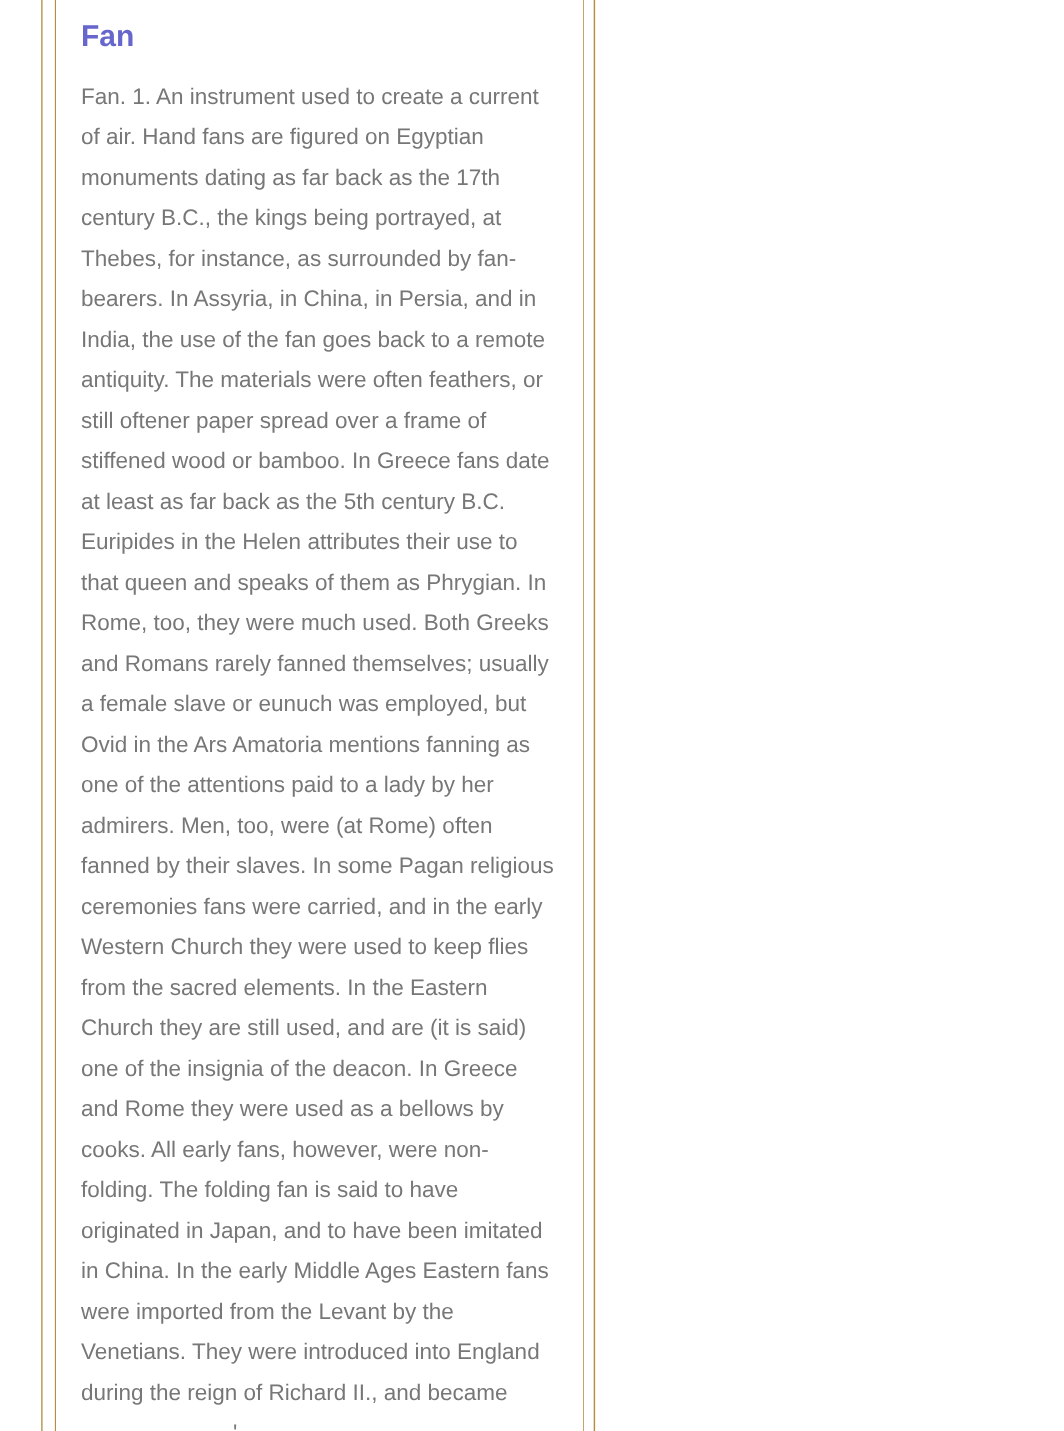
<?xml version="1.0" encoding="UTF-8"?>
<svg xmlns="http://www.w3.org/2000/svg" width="1064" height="1431">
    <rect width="100%" height="100%" fill="#FFFFFF"/>
    <image x="41" y="0" width="15" height="1431" href="img_01.png"/>
    <image x="583" y="0" width="13" height="1431" href="img_02.png"/>
    <text x="81" y="46" font-family="Liberation Sans" font-size="30" font-weight="700" fill="#6666CC">Fan</text>
    <text font-family="Liberation Sans" font-size="22.5" fill="#777777">
        <tspan x="81" y="104">Fan. 1. An instrument used to create a current</tspan>
        <tspan x="81" y="144">of air. Hand fans are figured on Egyptian</tspan>
        <tspan x="81" y="185">monuments dating as far back as the 17th</tspan>
        <tspan x="81" y="225">century B.C., the kings being portrayed, at</tspan>
        <tspan x="81" y="266">Thebes, for instance, as surrounded by fan-</tspan>
        <tspan x="81" y="306">bearers. In Assyria, in China, in Persia, and in</tspan>
        <tspan x="81" y="347">India, the use of the fan goes back to a remote</tspan>
        <tspan x="81" y="387">antiquity. The materials were often feathers, or</tspan>
        <tspan x="81" y="428">still oftener paper spread over a frame of</tspan>
        <tspan x="81" y="468">stiffened wood or bamboo. In Greece fans date</tspan>
        <tspan x="81" y="509">at least as far back as the 5th century B.C.</tspan>
        <tspan x="81" y="549">Euripides in the Helen attributes their use to</tspan>
        <tspan x="81" y="590">that queen and speaks of them as Phrygian. In</tspan>
        <tspan x="81" y="630">Rome, too, they were much used. Both Greeks</tspan>
        <tspan x="81" y="671">and Romans rarely fanned themselves; usually</tspan>
        <tspan x="81" y="711">a female slave or eunuch was employed, but</tspan>
        <tspan x="81" y="752">Ovid in the Ars Amatoria mentions fanning as</tspan>
        <tspan x="81" y="792">one of the attentions paid to a lady by her</tspan>
        <tspan x="81" y="833">admirers. Men, too, were (at Rome) often</tspan>
        <tspan x="81" y="873">fanned by their slaves. In some Pagan religious</tspan>
        <tspan x="81" y="914">ceremonies fans were carried, and in the early</tspan>
        <tspan x="81" y="954">Western Church they were used to keep flies</tspan>
        <tspan x="81" y="995">from the sacred elements. In the Eastern</tspan>
        <tspan x="81" y="1035">Church they are still used, and are (it is said)</tspan>
        <tspan x="81" y="1076">one of the insignia of the deacon. In Greece</tspan>
        <tspan x="81" y="1116">and Rome they were used as a bellows by</tspan>
        <tspan x="81" y="1157">cooks. All early fans, however, were non-</tspan>
        <tspan x="81" y="1197">folding. The folding fan is said to have</tspan>
        <tspan x="81" y="1238">originated in Japan, and to have been imitated</tspan>
        <tspan x="81" y="1278">in China. In the early Middle Ages Eastern fans</tspan>
        <tspan x="81" y="1319">were imported from the Levant by the</tspan>
        <tspan x="81" y="1359">Venetians. They were introduced into England</tspan>
        <tspan x="81" y="1400">during the reign of Richard II., and became</tspan>
    </text>
    <text x="233" y="1440" font-family="Liberation Sans" font-size="22.5" fill="#777777">'</text>
</svg>
